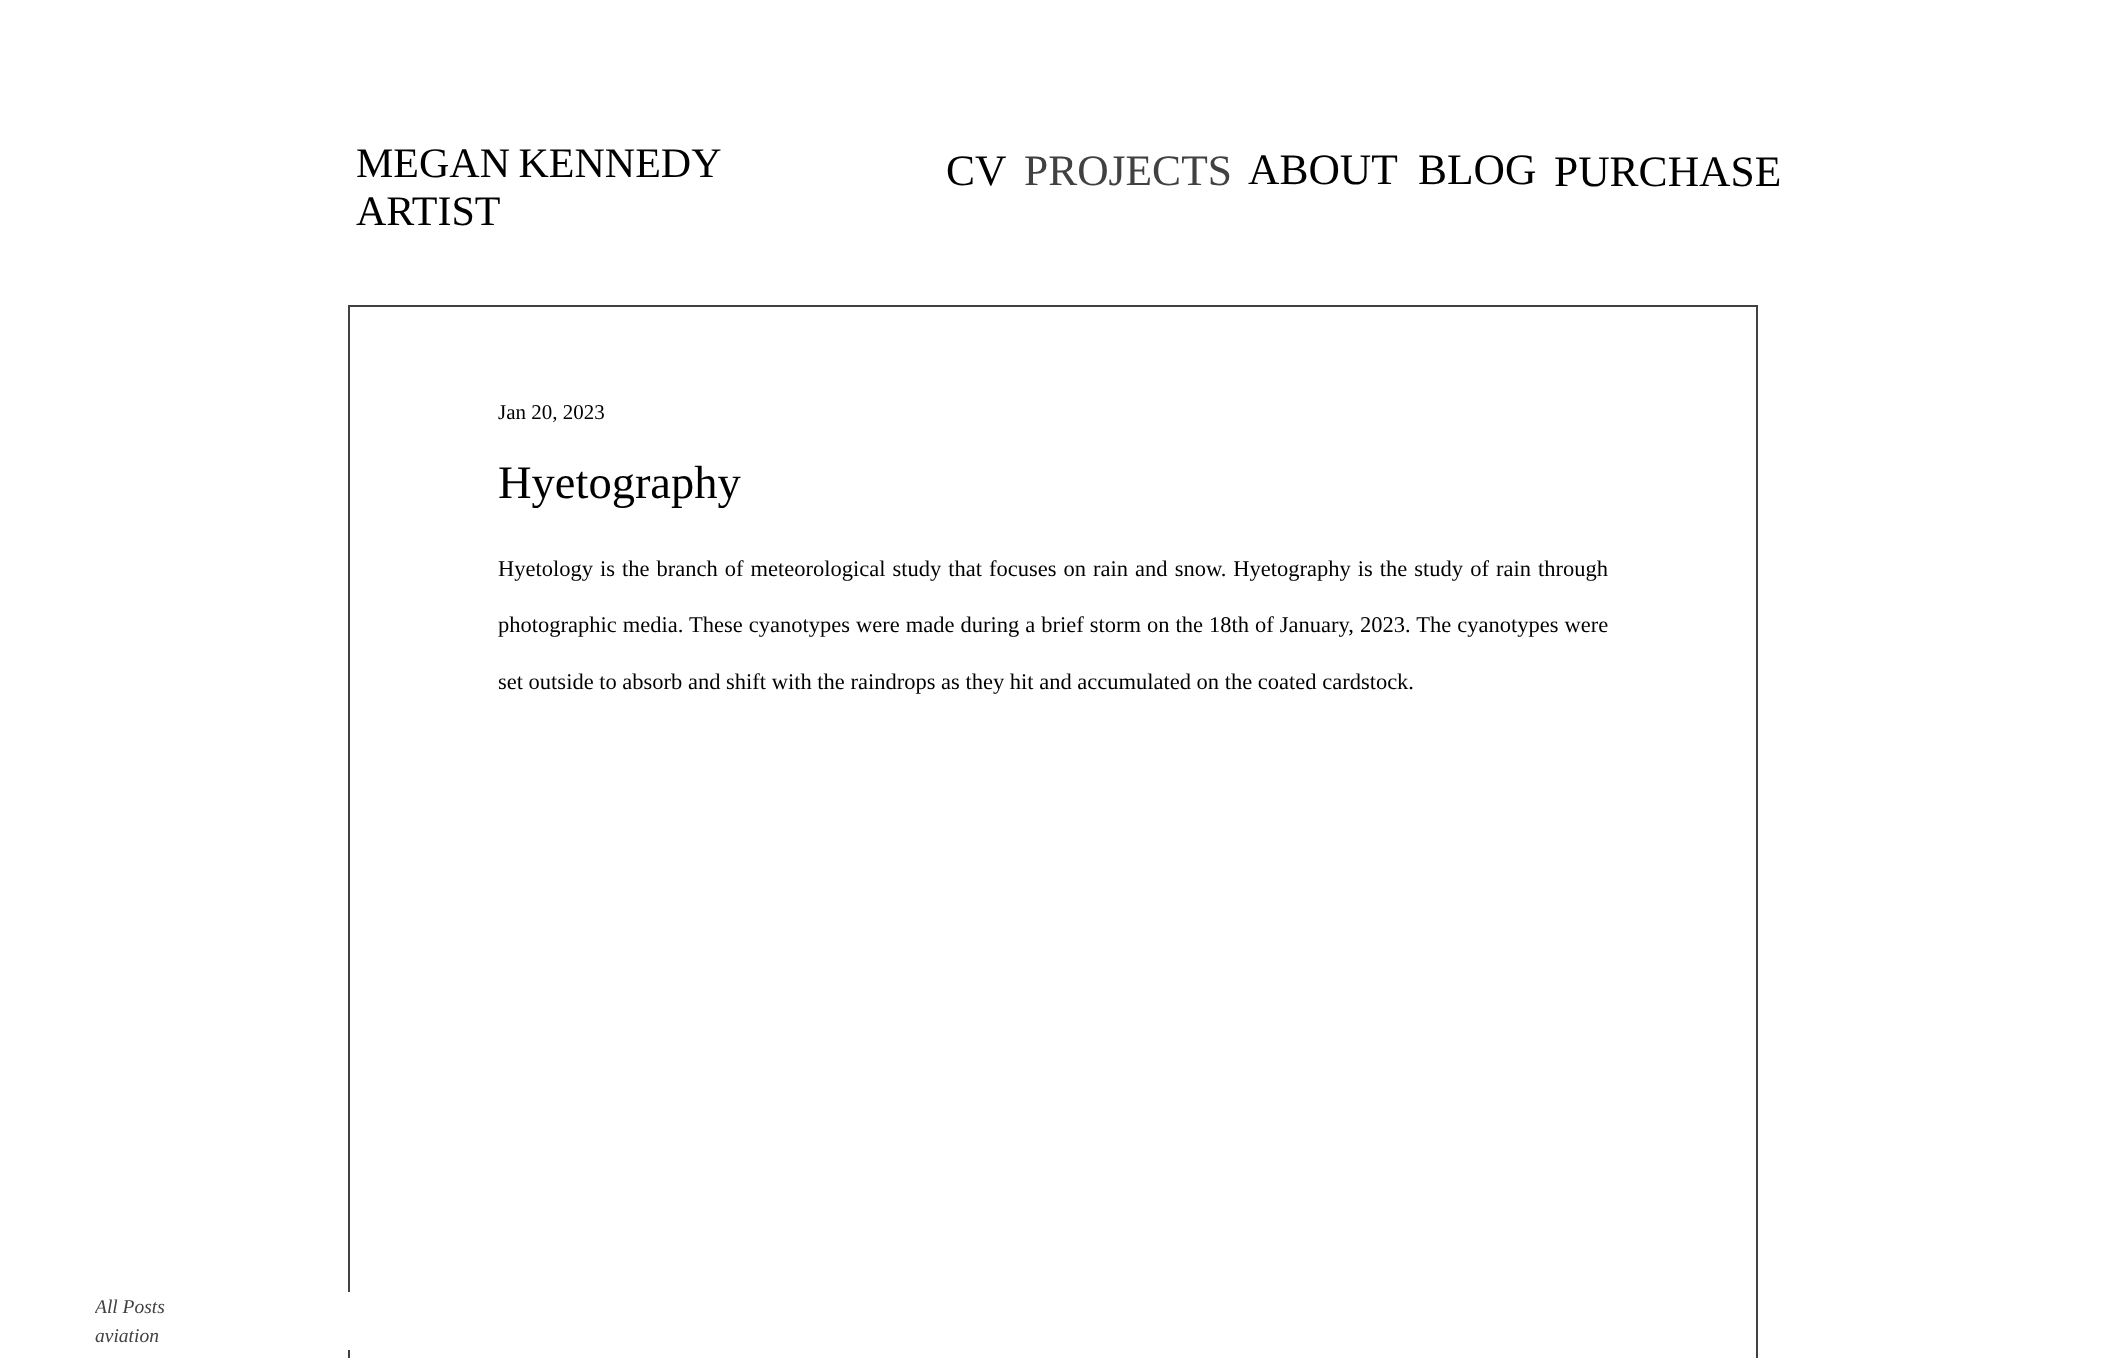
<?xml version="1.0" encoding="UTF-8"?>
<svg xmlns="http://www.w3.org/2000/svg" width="2106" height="1358">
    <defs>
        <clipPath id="clip1"><rect x="95" y="1292" width="70" height="30"/></clipPath>
    </defs>
    <rect width="100%" height="100%" fill="#FFFFFF"/>
    <text font-family="Liberation Serif" font-size="42" fill="#000000">
        <tspan x="356" y="177" word-spacing="-2">MEGAN KENNEDY</tspan>
        <tspan x="356" y="225">ARTIST</tspan>
    </text>
    <text x="946" y="185" font-family="Liberation Serif" font-size="43.5" fill="#000000">CV</text>
    <text x="1024" y="185" font-family="Liberation Serif" font-size="43.5" fill="#414141">PROJECTS</text>
    <text x="1248" y="184" font-family="Liberation Serif" font-size="43.5" fill="#000000">ABOUT</text>
    <text x="1418" y="184" font-family="Liberation Serif" font-size="43.5" fill="#000000">BLOG</text>
    <text x="1554" y="186" font-family="Liberation Serif" font-size="43.5" fill="#000000">PURCHASE</text>
    <rect x="349" y="306" width="1408" height="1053" fill="none" stroke="#414141" stroke-width="2"/>
    <text x="498" y="419" font-family="Liberation Serif" font-size="21" fill="#000000">Jan 20, 2023</text>
    <text x="498" y="498" font-family="Liberation Serif" font-size="46.5" fill="#000000">Hyetography</text>
    <text x="498" y="576" word-spacing="1.4" font-family="Liberation Serif" font-size="22.5" fill="#000000">Hyetology is the branch of meteorological study that focuses on rain and snow. Hyetography is the study of rain through</text>
    <text x="498" y="632" word-spacing="0.4" font-family="Liberation Serif" font-size="22.5" fill="#000000">photographic media. These cyanotypes were made during a brief storm on the 18th of January, 2023. The cyanotypes were</text>
    <text x="498" y="689" font-family="Liberation Serif" font-size="22.5" fill="#000000">set outside to absorb and shift with the raindrops as they hit and accumulated on the coated cardstock.</text>
    <rect x="348" y="1292" width="2" height="58" fill="#FFFFFF"/>
    <g clip-path="url(#clip1)">
        <text x="95" y="1313" font-family="Liberation Serif" font-size="19.5" font-style="italic" fill="#414141">All Posts</text>
    </g>
    <text x="95" y="1342" font-family="Liberation Serif" font-size="19.5" font-style="italic" fill="#414141">aviation</text>
</svg>
